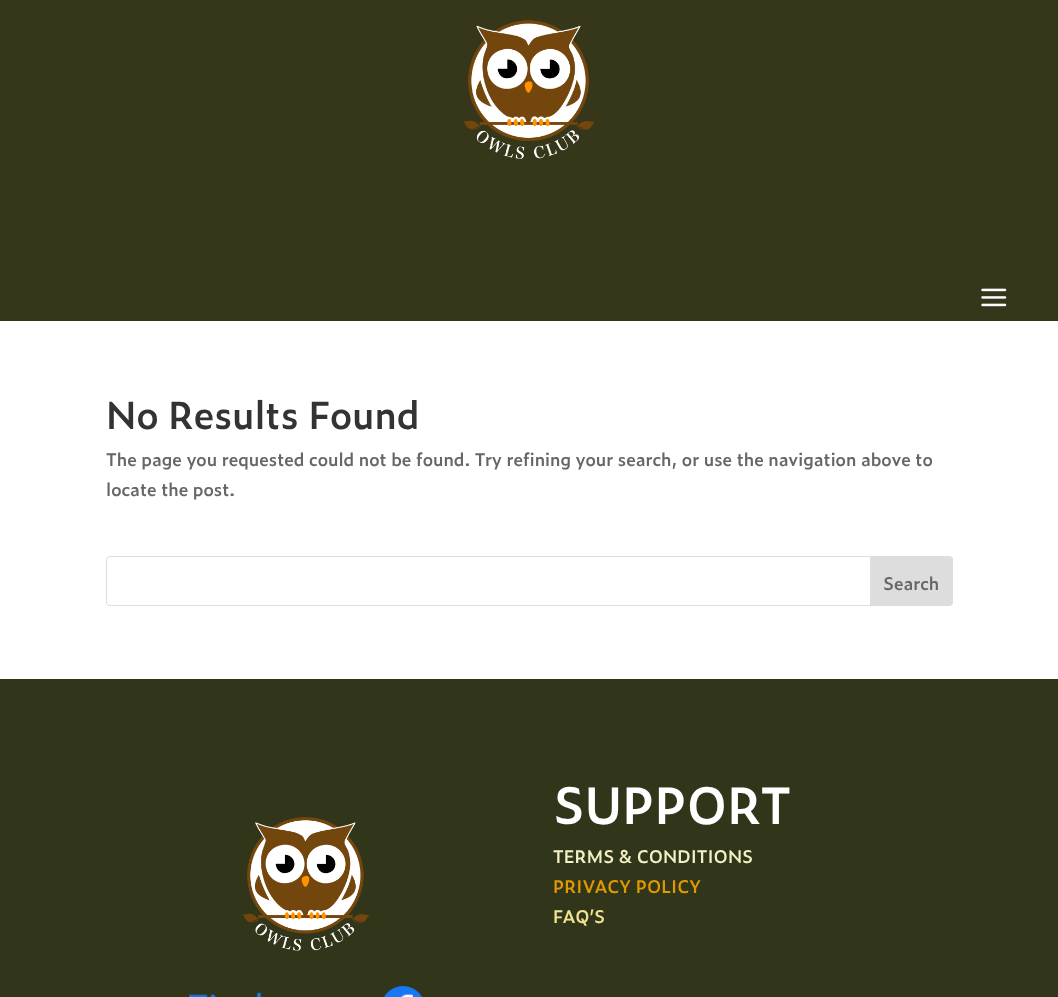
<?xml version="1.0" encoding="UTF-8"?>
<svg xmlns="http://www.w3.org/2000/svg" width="1058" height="997">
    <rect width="100%" height="100%" fill="#FFFFFF"/>
    <rect x="0" y="0" width="1058" height="321" fill="#36361A"/>
    <image x="463" y="20" width="132" height="139" href="img_01.png"/>
    <image x="981" y="288" width="26" height="19" href="img_02.png"/>
    <text x="106" y="429" font-family="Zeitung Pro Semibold" font-size="37.5" font-weight="600" fill="#333333">No Results Found</text>
    <text font-family="Zeitung Pro Semibold" font-size="17.5" font-weight="600" fill="#666666">
        <tspan x="106" y="466">The page you requested could not be found. Try refining your search, or use the navigation above to</tspan>
        <tspan x="106" y="496">locate the post.</tspan>
    </text>
    <rect x="106.5" y="556.5" width="846" height="49" rx="3.5" fill="none" stroke="#DDDDDD"/>
    <path d="M 870.5 556.5 H 949 C 951 556.5 952.5 558 952.5 560 V 602 C 952.5 604 951 605.5 949 605.5 H 870.5 Z" fill="#DDDDDD" stroke="#DDDDDD"/>
    <text x="883" y="590" font-family="Zeitung Pro Semibold" font-size="17.5" font-weight="600" fill="#666666">Search</text>
    <rect x="0" y="679" width="1058" height="318" fill="#313519"/>
    <image x="242" y="817" width="127" height="134" href="img_03.png"/>
    <image x="189" y="986" width="234" height="11" href="img_04.png"/>
    <text x="553" y="824" font-family="Zeitung Pro Semibold" font-size="50" font-weight="600" fill="#FFFFFF">SUPPORT</text>
    <text x="553" y="863" font-family="Zeitung Pro Semibold" font-size="17.5" font-weight="600" fill="#F2F0C4">TERMS &amp; CONDITIONS</text>
    <text x="553" y="893" font-family="Zeitung Pro Semibold" font-size="17.5" font-weight="600" fill="#E09900">PRIVACY POLICY</text>
    <text x="553" y="923" font-family="Zeitung Pro Semibold" font-size="17.5" font-weight="600" fill="#EFE592">FAQ’S</text>
</svg>
